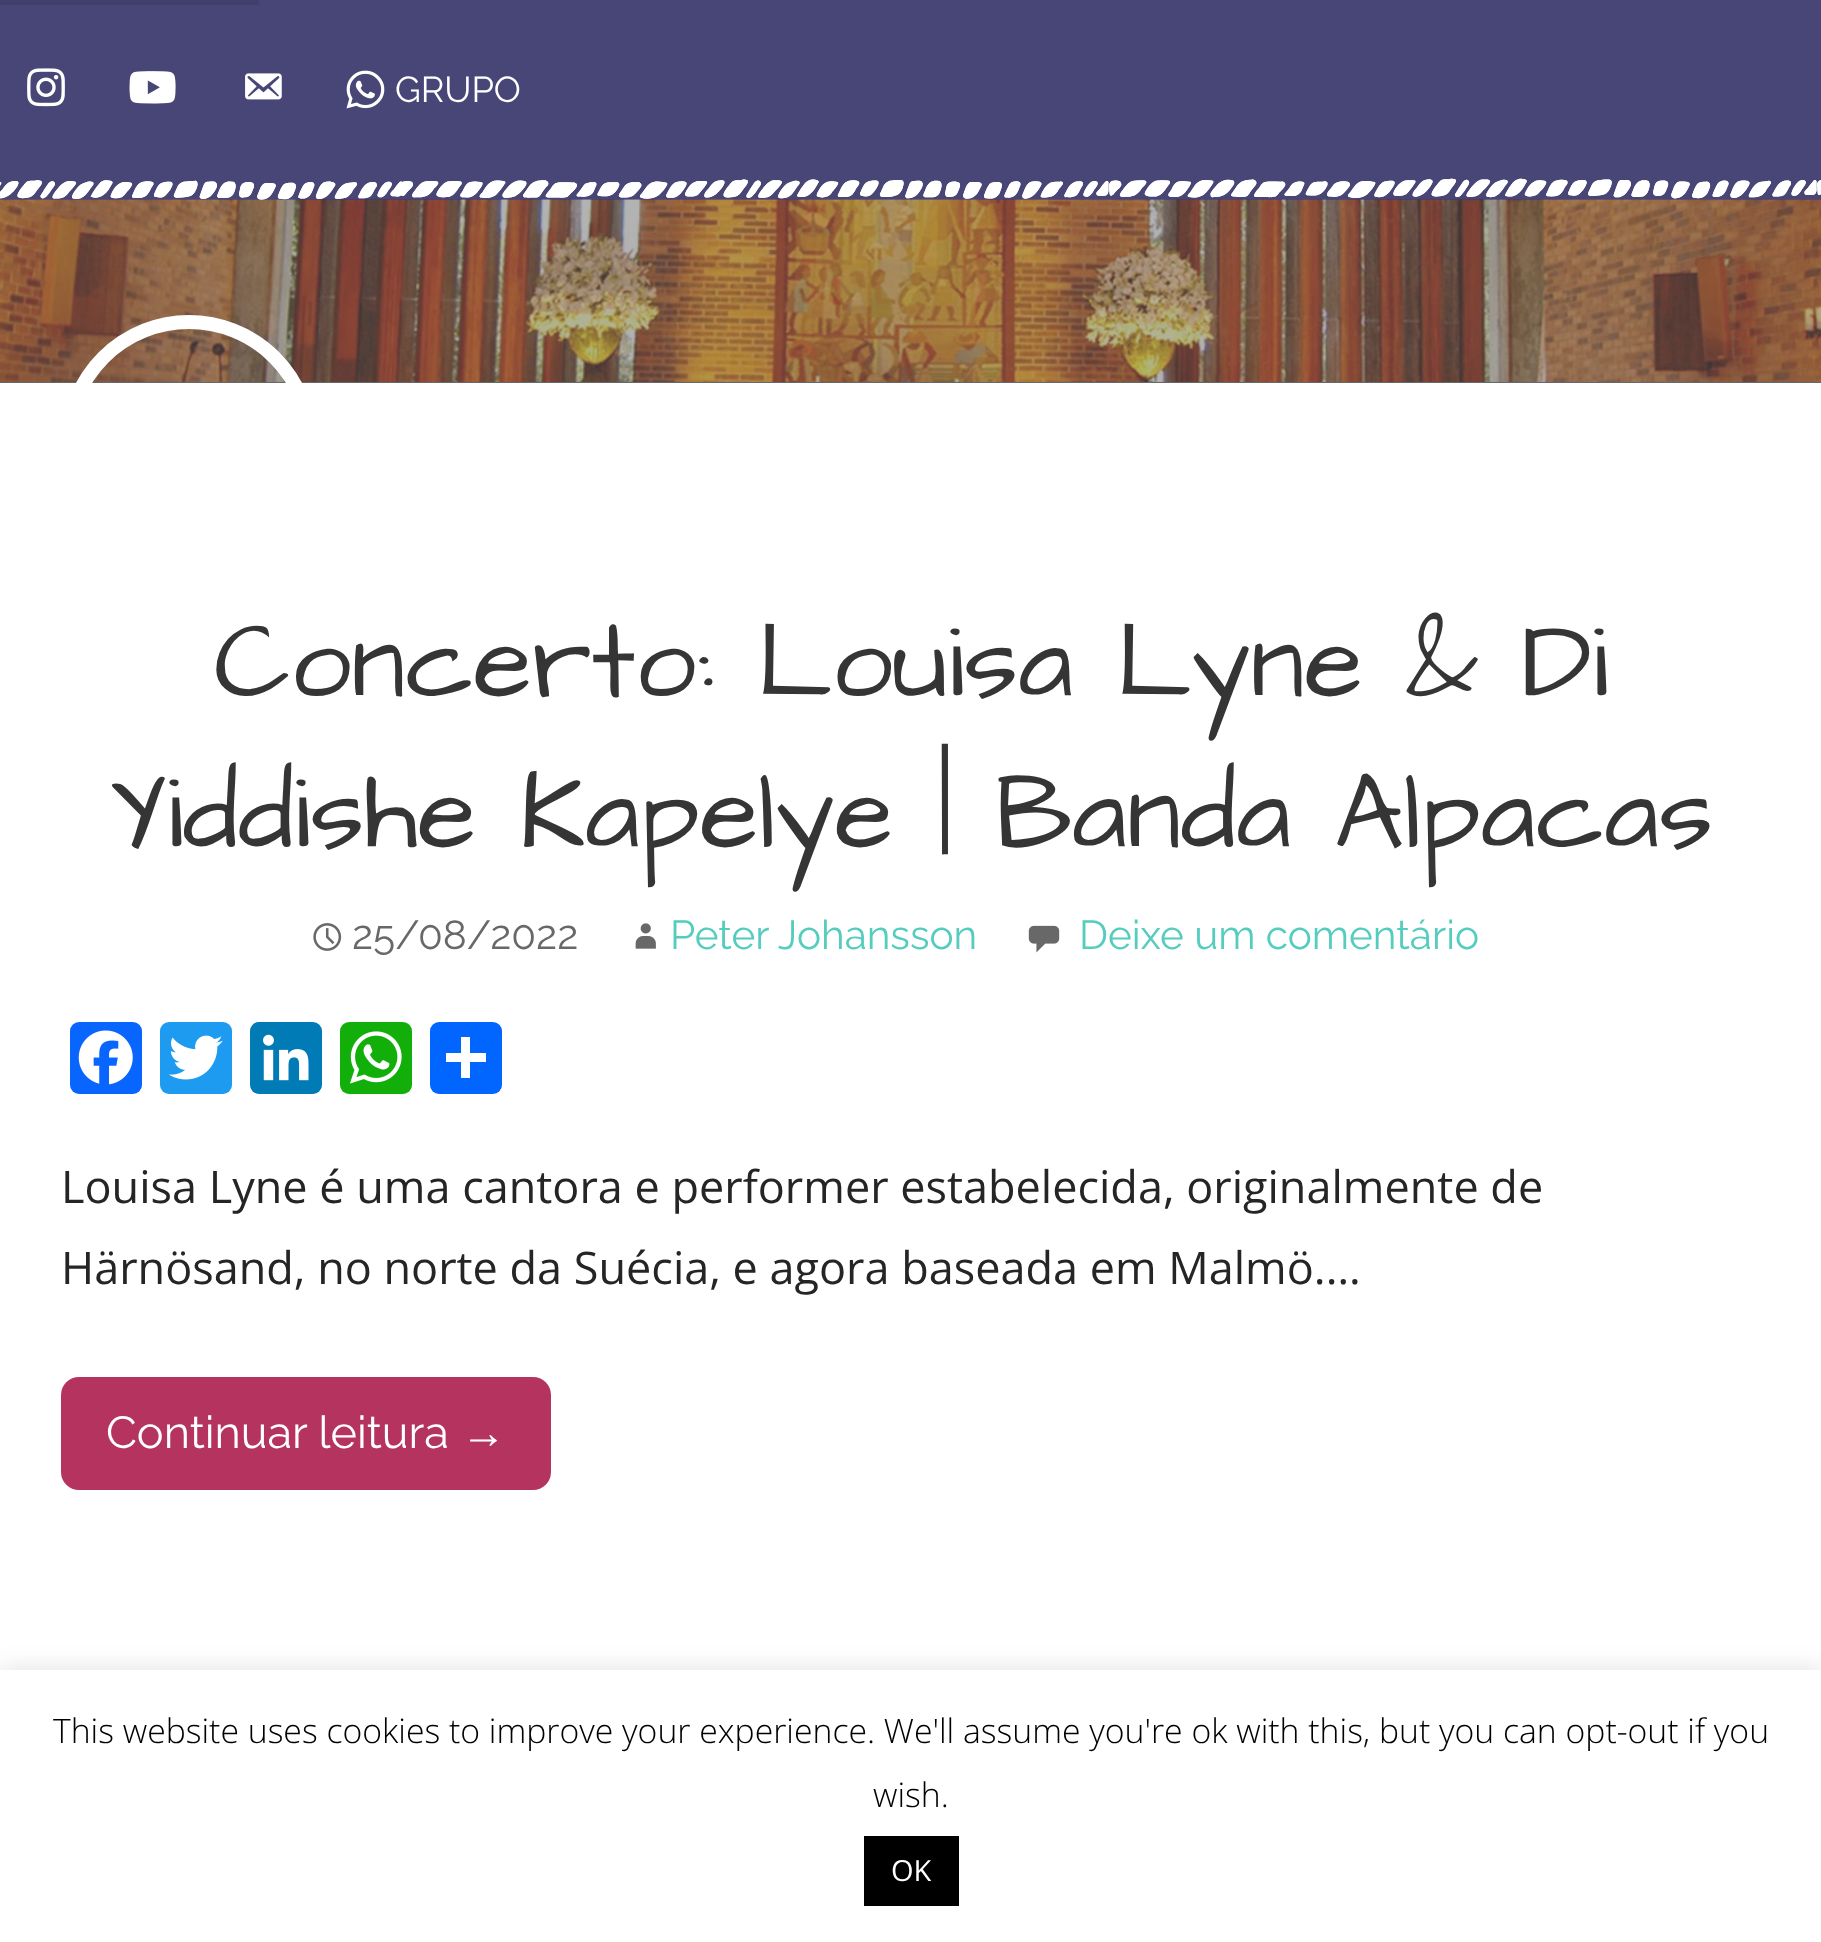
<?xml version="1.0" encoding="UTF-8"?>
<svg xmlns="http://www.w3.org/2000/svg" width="1821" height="1942">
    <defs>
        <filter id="blur1" x="-50%" y="-200%" width="200%" height="500%"><feGaussianBlur stdDeviation="11"/></filter>
    </defs>
    <rect width="100%" height="100%" fill="#FFFFFF"/>
    <rect x="0" y="0" width="1821" height="200" fill="#484677"/>
    <rect x="0" y="0" width="259" height="5" fill="#413F6B"/>
    <image x="27" y="68" width="38" height="39" href="img_01.png"/>
    <image x="129" y="71" width="47" height="33" href="img_02.png"/>
    <image x="245" y="73" width="37" height="27" href="img_03.png"/>
    <image x="346" y="70" width="39" height="39" href="img_04.png"/>
    <text x="395" y="102" font-family="Raleway" font-size="36" fill="#FFFFFF">GRUPO</text>
    <image x="0" y="199" width="1821" height="183" href="img_06.png"/>
    <image x="0" y="178" width="1821" height="22" href="img_05.png"/>
    <rect x="0" y="382" width="1821" height="1" fill="#686868"/>
    <rect x="68" y="322" width="242" height="243" rx="121" fill="none" stroke="#FFFFFF" stroke-width="14"/>
    <text x="214" y="696" font-family="Architects Daughter" font-size="108" fill="#353535">Concerto: Louisa Lyne &amp; Di</text>
    <text x="109" y="847" font-family="Architects Daughter" font-size="108" fill="#353535">Yiddishe Kapelye | Banda Alpacas</text>
    <image x="313" y="923" width="29" height="28" href="img_07.png"/>
    <text x="352" y="949" font-family="Raleway" font-size="40.5" fill="#686868">25/08/2022</text>
    <image x="635" y="923" width="21" height="26" href="img_08.png"/>
    <text x="670" y="949" font-family="Raleway" font-size="40.5" fill="#54CCBE">Peter Johansson</text>
    <image x="1028" y="925" width="32" height="28" href="img_09.png"/>
    <text x="1079" y="949" font-family="Raleway" font-size="40.5" fill="#54CCBE">Deixe um comentário</text>
    <rect x="70" y="1022" width="72" height="72" rx="9" fill="#0866FF"/>
    <image x="78" y="1030" width="55" height="55" href="img_10.png"/>
    <rect x="160" y="1022" width="72" height="72" rx="9" fill="#1D9BF0"/>
    <image x="169" y="1035" width="54" height="45" href="img_11.png"/>
    <rect x="250" y="1022" width="72" height="72" rx="9" fill="#007BB5"/>
    <image x="263" y="1034" width="46" height="47" href="img_12.png"/>
    <rect x="340" y="1022" width="72" height="72" rx="9" fill="#12AF0A"/>
    <image x="350" y="1031" width="52" height="53" href="img_13.png"/>
    <rect x="430" y="1022" width="72" height="72" rx="9" fill="#0166FF"/>
    <rect x="461" y="1037" width="9" height="41" fill="#FFFFFF"/>
    <rect x="446" y="1053" width="40" height="9" fill="#FFFFFF"/>
    <text font-family="Open Sans" font-size="45" fill="#252525">
        <tspan x="61" y="1203">Louisa Lyne é uma cantora e performer estabelecida, originalmente de</tspan>
        <tspan x="61" y="1284">Härnösand, no norte da Suécia, e agora baseada em Malmö.…</tspan>
    </text>
    <rect x="61" y="1377" width="490" height="113" rx="18" fill="#B5345F"/>
    <text x="106" y="1448" font-family="Raleway" font-size="45" fill="#FFFFFF">Continuar leitura</text>
    <text x="461" y="1448" font-family="Liberation Sans" font-size="45" fill="#FFFFFF">→</text>
    <rect x="0" y="1667" width="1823" height="275" fill="#ACABAB" fill-opacity="0.3" filter="url(#blur1)"/>
    <rect x="0" y="1670" width="1821" height="272" fill="#FFFFFF"/>
    <text x="53" y="1743" font-family="Open Sans" font-size="33.75" font-weight="300" fill="#000000">This website uses cookies to improve your experience. We'll assume you're ok with this, but you can opt-out if you</text>
    <text x="873" y="1807" font-family="Open Sans" font-size="33.75" font-weight="300" fill="#000000">wish.</text>
    <rect x="864" y="1836" width="95" height="70" fill="#000000"/>
    <text x="891" y="1881" font-family="Open Sans" font-size="29" fill="#FFFFFF">OK</text>
</svg>
